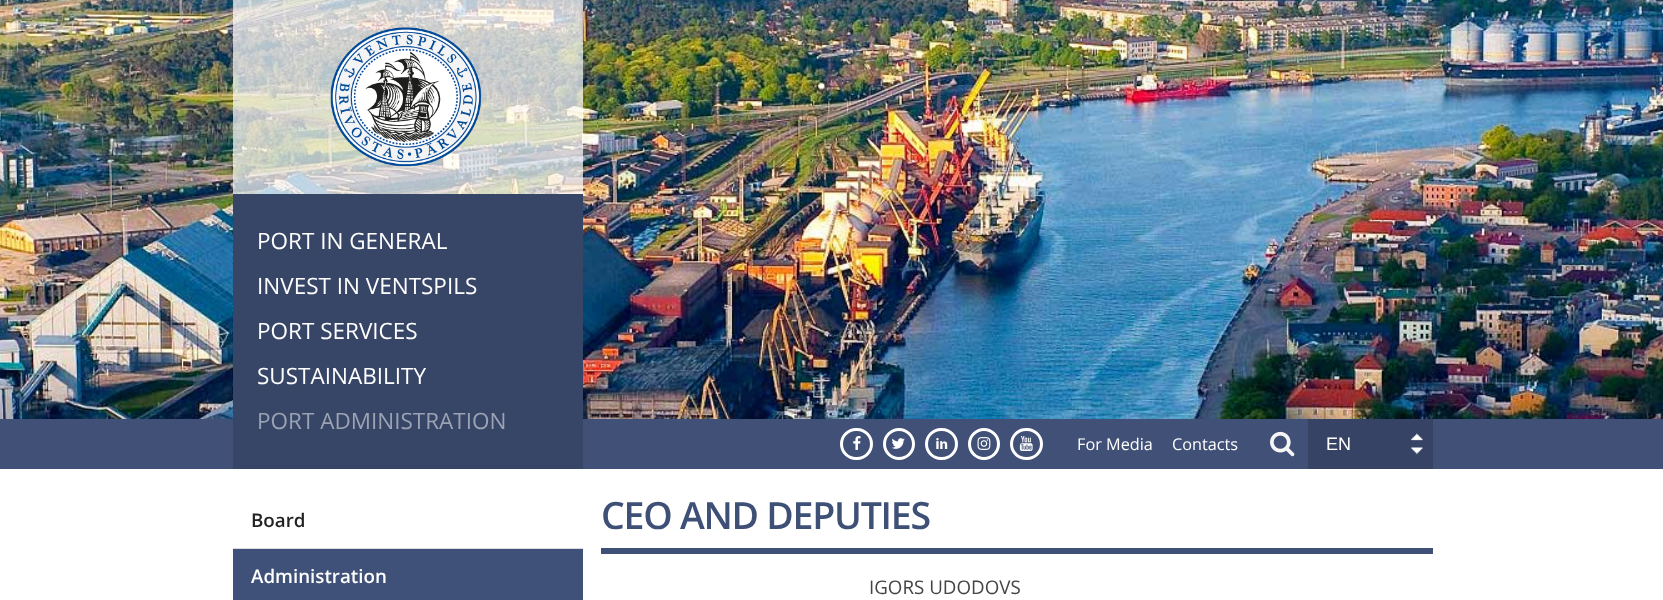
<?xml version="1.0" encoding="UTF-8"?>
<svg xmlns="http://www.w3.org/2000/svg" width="1663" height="600">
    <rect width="100%" height="100%" fill="#FFFFFF"/>
    <image x="0" y="0" width="1663" height="419" href="img_01.png"/>
    <rect x="233" y="0" width="350" height="194" fill="#FFFFFF" fill-opacity="0.7"/>
    <image x="330" y="27" width="152" height="140" href="img_02.png"/>
    <rect x="0" y="419" width="1663" height="50" fill="#405077"/>
    <rect x="233" y="194" width="350" height="275" fill="#374566"/>
    <text x="257" y="249" font-family="Open Sans" font-size="22.5" fill="#FFFFFF">PORT IN GENERAL</text>
    <text x="257" y="294" font-family="Open Sans" font-size="22.5" fill="#FFFFFF">INVEST IN VENTSPILS</text>
    <text x="257" y="339" font-family="Open Sans" font-size="22.5" fill="#FFFFFF">PORT SERVICES</text>
    <text x="257" y="384" font-family="Open Sans" font-size="22.5" fill="#FFFFFF">SUSTAINABILITY</text>
    <text x="257" y="429" font-family="Open Sans" font-size="22.5" fill="#9BA2B3">PORT ADMINISTRATION</text>
    <rect x="841.5" y="429.5" width="30" height="29" rx="14.5" fill="none" stroke="#FFFFFF" stroke-width="3"/>
    <image x="853" y="436" width="8" height="14" href="img_03.png"/>
    <circle cx="899" cy="444" r="14.5" fill="none" stroke="#FFFFFF" stroke-width="3"/>
    <image x="891" y="438" width="14" height="11" href="img_04.png"/>
    <rect x="926.5" y="429.5" width="30" height="29" rx="14.5" fill="none" stroke="#FFFFFF" stroke-width="3"/>
    <image x="936" y="438" width="12" height="11" href="img_05.png"/>
    <circle cx="984" cy="444" r="14.5" fill="none" stroke="#FFFFFF" stroke-width="3"/>
    <image x="977" y="437" width="14" height="13" href="img_06.png"/>
    <rect x="1011.5" y="429.5" width="30" height="29" rx="14.5" fill="none" stroke="#FFFFFF" stroke-width="3"/>
    <image x="1019" y="436" width="14" height="15" href="img_07.png"/>
    <text x="1077" y="450" font-family="Open Sans" font-size="16.25" fill="#FFFFFF">For Media</text>
    <text x="1172" y="450" font-family="Open Sans" font-size="16.25" fill="#FFFFFF">Contacts</text>
    <image x="1270" y="431" width="25" height="26" href="img_08.png"/>
    <rect x="1308" y="419" width="125" height="50" fill="#374365"/>
    <text x="1326" y="450" font-family="Liberation Sans" font-size="18" fill="#FFFFFF">EN</text>
    <image x="1411" y="433" width="12" height="21" href="img_09.png"/>
    <rect x="233" y="548" width="350" height="1" fill="#DDDDDD"/>
    <text x="251" y="527" font-family="Open Sans" font-size="18.75" font-weight="600" fill="#222222">Board</text>
    <rect x="233" y="549" width="350" height="51" fill="#3F5178"/>
    <text x="251" y="583" font-family="Open Sans" font-size="18.75" font-weight="600" fill="#FFFFFF">Administration</text>
    <rect x="601" y="548" width="832" height="6" fill="#3F5077"/>
    <text x="601" y="529" font-family="Open Sans" font-size="37.5" font-weight="600" letter-spacing="-1.25" fill="#3F5077">CEO AND DEPUTIES</text>
    <text x="869" y="594" font-family="Open Sans" font-size="18.75" fill="#444444">IGORS UDODOVS</text>
</svg>
